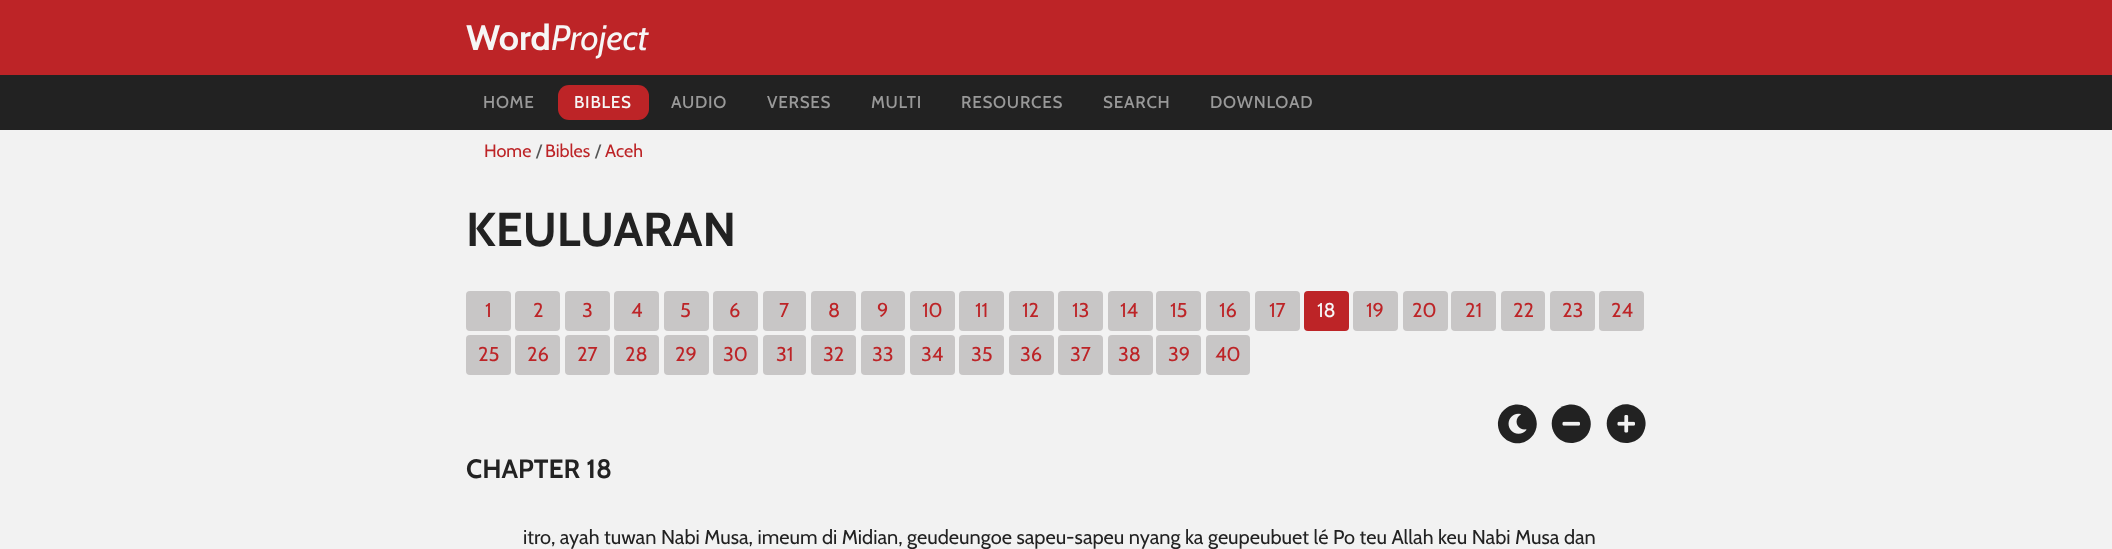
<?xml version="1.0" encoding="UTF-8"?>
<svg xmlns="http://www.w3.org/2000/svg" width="2112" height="549">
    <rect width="100%" height="100%" fill="#F2F2F2"/>
    <rect x="0" y="0" width="2112" height="75" fill="#BD2427"/>
    <text x="466" y="50" font-family="Cabin" font-size="35.5" font-weight="700" fill="#F6F6F6">Word</text>
    <text x="551" y="50" font-family="Cabin" font-size="35.5" font-style="italic" fill="#F6F6F6">Project</text>
    <rect x="0" y="75" width="2112" height="55" fill="#222222"/>
    <text x="483" y="108" font-family="Cabin" font-size="17" font-weight="500" letter-spacing="0.75" fill="#999999">HOME</text>
    <rect x="558" y="85" width="91" height="35" rx="11" fill="#BD2427"/>
    <text x="574" y="108" font-family="Cabin" font-size="17" font-weight="500" letter-spacing="0.75" fill="#F6F6F6">BIBLES</text>
    <text x="671" y="108" font-family="Cabin" font-size="17" font-weight="500" letter-spacing="0.75" fill="#999999">AUDIO</text>
    <text x="767" y="108" font-family="Cabin" font-size="17" font-weight="500" letter-spacing="0.75" fill="#999999">VERSES</text>
    <text x="871" y="108" font-family="Cabin" font-size="17" font-weight="500" letter-spacing="0.75" fill="#999999">MULTI</text>
    <text x="961" y="108" font-family="Cabin" font-size="17" font-weight="500" letter-spacing="0.75" fill="#999999">RESOURCES</text>
    <text x="1103" y="108" font-family="Cabin" font-size="17" font-weight="500" letter-spacing="0.75" fill="#999999">SEARCH</text>
    <text x="1210" y="108" font-family="Cabin" font-size="17" font-weight="500" letter-spacing="0.75" fill="#999999">DOWNLOAD</text>
    <text x="484" y="157" font-family="Cabin" font-size="18" fill="#BD2427">Home</text>
    <text x="536" y="157" font-family="Cabin" font-size="18" fill="#555555">/</text>
    <text x="545" y="157" font-family="Cabin" font-size="18" fill="#BD2427">Bibles</text>
    <text x="595" y="157" font-family="Cabin" font-size="18" fill="#555555">/</text>
    <text x="605" y="157" font-family="Cabin" font-size="18" fill="#BD2427">Aceh</text>
    <text x="466" y="246" font-family="Cabin" font-size="47.5" font-weight="700" fill="#222222">KEULUARAN</text>
    <rect x="466" y="291" width="45" height="40" rx="4" fill="#C8C6C6"/>
    <text x="485" y="317" font-family="Cabin" font-size="20" fill="#BD2427">1</text>
    <rect x="515" y="291" width="45" height="40" rx="4" fill="#C8C6C6"/>
    <text x="533" y="317" font-family="Cabin" font-size="20" fill="#BD2427">2</text>
    <rect x="565" y="291" width="45" height="40" rx="4" fill="#C8C6C6"/>
    <text x="582" y="317" font-family="Cabin" font-size="20" fill="#BD2427">3</text>
    <rect x="614" y="291" width="45" height="40" rx="4" fill="#C8C6C6"/>
    <text x="631" y="317" font-family="Cabin" font-size="20" fill="#BD2427">4</text>
    <rect x="664" y="291" width="45" height="40" rx="4" fill="#C8C6C6"/>
    <text x="680" y="317" font-family="Cabin" font-size="20" fill="#BD2427">5</text>
    <rect x="713" y="291" width="45" height="40" rx="4" fill="#C8C6C6"/>
    <text x="729" y="317" font-family="Cabin" font-size="20" fill="#BD2427">6</text>
    <rect x="763" y="291" width="43" height="40" rx="4" fill="#C8C6C6"/>
    <text x="779" y="317" font-family="Cabin" font-size="20" fill="#BD2427">7</text>
    <rect x="811" y="291" width="45" height="40" rx="4" fill="#C8C6C6"/>
    <text x="828" y="317" font-family="Cabin" font-size="20" fill="#BD2427">8</text>
    <rect x="861" y="291" width="44" height="40" rx="4" fill="#C8C6C6"/>
    <text x="877" y="317" font-family="Cabin" font-size="20" fill="#BD2427">9</text>
    <rect x="910" y="291" width="45" height="40" rx="4" fill="#C8C6C6"/>
    <text x="922" y="317" font-family="Cabin" font-size="20" fill="#BD2427">10</text>
    <rect x="959" y="291" width="45" height="40" rx="4" fill="#C8C6C6"/>
    <text x="975" y="317" font-family="Cabin" font-size="20" fill="#BD2427">11</text>
    <rect x="1009" y="291" width="45" height="40" rx="4" fill="#C8C6C6"/>
    <text x="1022" y="317" font-family="Cabin" font-size="20" fill="#BD2427">12</text>
    <rect x="1058" y="291" width="45" height="40" rx="4" fill="#C8C6C6"/>
    <text x="1072" y="317" font-family="Cabin" font-size="20" fill="#BD2427">13</text>
    <rect x="1108" y="291" width="45" height="40" rx="4" fill="#C8C6C6"/>
    <text x="1120" y="317" font-family="Cabin" font-size="20" fill="#BD2427">14</text>
    <rect x="1156" y="291" width="45" height="40" rx="4" fill="#C8C6C6"/>
    <text x="1170" y="317" font-family="Cabin" font-size="20" fill="#BD2427">15</text>
    <rect x="1206" y="291" width="44" height="40" rx="4" fill="#C8C6C6"/>
    <text x="1219" y="317" font-family="Cabin" font-size="20" fill="#BD2427">16</text>
    <rect x="1255" y="291" width="45" height="40" rx="4" fill="#C8C6C6"/>
    <text x="1269" y="317" font-family="Cabin" font-size="20" fill="#BD2427">17</text>
    <rect x="1304" y="291" width="45" height="40" rx="4" fill="#BD2427"/>
    <text x="1317" y="317" font-family="Cabin" font-size="20" fill="#F6F6F6">18</text>
    <rect x="1353" y="291" width="45" height="40" rx="4" fill="#C8C6C6"/>
    <text x="1366" y="317" font-family="Cabin" font-size="20" fill="#BD2427">19</text>
    <rect x="1403" y="291" width="45" height="40" rx="4" fill="#C8C6C6"/>
    <text x="1412" y="317" font-family="Cabin" font-size="20" fill="#BD2427">20</text>
    <rect x="1451" y="291" width="45" height="40" rx="4" fill="#C8C6C6"/>
    <text x="1465" y="317" font-family="Cabin" font-size="20" fill="#BD2427">21</text>
    <rect x="1501" y="291" width="44" height="40" rx="4" fill="#C8C6C6"/>
    <text x="1513" y="317" font-family="Cabin" font-size="20" fill="#BD2427">22</text>
    <rect x="1550" y="291" width="45" height="40" rx="4" fill="#C8C6C6"/>
    <text x="1562" y="317" font-family="Cabin" font-size="20" fill="#BD2427">23</text>
    <rect x="1599" y="291" width="45" height="40" rx="4" fill="#C8C6C6"/>
    <text x="1611" y="317" font-family="Cabin" font-size="20" fill="#BD2427">24</text>
    <rect x="466" y="335" width="45" height="40" rx="4" fill="#C8C6C6"/>
    <text x="478" y="361" font-family="Cabin" font-size="20" fill="#BD2427">25</text>
    <rect x="515" y="335" width="45" height="40" rx="4" fill="#C8C6C6"/>
    <text x="527" y="361" font-family="Cabin" font-size="20" fill="#BD2427">26</text>
    <rect x="565" y="335" width="45" height="40" rx="4" fill="#C8C6C6"/>
    <text x="577" y="361" font-family="Cabin" font-size="20" fill="#BD2427">27</text>
    <rect x="614" y="335" width="45" height="40" rx="4" fill="#C8C6C6"/>
    <text x="625" y="361" font-family="Cabin" font-size="20" fill="#BD2427">28</text>
    <rect x="664" y="335" width="45" height="40" rx="4" fill="#C8C6C6"/>
    <text x="675" y="361" font-family="Cabin" font-size="20" fill="#BD2427">29</text>
    <rect x="713" y="335" width="45" height="40" rx="4" fill="#C8C6C6"/>
    <text x="723" y="361" font-family="Cabin" font-size="20" fill="#BD2427">30</text>
    <rect x="763" y="335" width="43" height="40" rx="4" fill="#C8C6C6"/>
    <text x="776" y="361" font-family="Cabin" font-size="20" fill="#BD2427">31</text>
    <rect x="811" y="335" width="45" height="40" rx="4" fill="#C8C6C6"/>
    <text x="823" y="361" font-family="Cabin" font-size="20" fill="#BD2427">32</text>
    <rect x="861" y="335" width="44" height="40" rx="4" fill="#C8C6C6"/>
    <text x="872" y="361" font-family="Cabin" font-size="20" fill="#BD2427">33</text>
    <rect x="910" y="335" width="45" height="40" rx="4" fill="#C8C6C6"/>
    <text x="921" y="361" font-family="Cabin" font-size="20" fill="#BD2427">34</text>
    <rect x="959" y="335" width="45" height="40" rx="4" fill="#C8C6C6"/>
    <text x="971" y="361" font-family="Cabin" font-size="20" fill="#BD2427">35</text>
    <rect x="1009" y="335" width="45" height="40" rx="4" fill="#C8C6C6"/>
    <text x="1020" y="361" font-family="Cabin" font-size="20" fill="#BD2427">36</text>
    <rect x="1058" y="335" width="45" height="40" rx="4" fill="#C8C6C6"/>
    <text x="1070" y="361" font-family="Cabin" font-size="20" fill="#BD2427">37</text>
    <rect x="1108" y="335" width="45" height="40" rx="4" fill="#C8C6C6"/>
    <text x="1118" y="361" font-family="Cabin" font-size="20" fill="#BD2427">38</text>
    <rect x="1156" y="335" width="45" height="40" rx="4" fill="#C8C6C6"/>
    <text x="1168" y="361" font-family="Cabin" font-size="20" fill="#BD2427">39</text>
    <rect x="1206" y="335" width="44" height="40" rx="4" fill="#C8C6C6"/>
    <text x="1215" y="361" font-family="Cabin" font-size="20" fill="#BD2427">40</text>
    <path d="M 1504 410 C 1507 407 1511 405 1515.5 404.5 C 1533.5 403 1544 424.5 1531 437.5 C 1518.5 450.5 1496.5 440 1498 422 C 1498.5 417.5 1500.5 413 1504 410 Z" fill="#222222"/>
    <image x="1508" y="413" width="19" height="21" href="img_01.png"/>
    <path d="M 1557.5 410 C 1560.5 407 1565 405 1569.5 404.5 C 1587.5 403 1598 424.5 1585 437.5 C 1582 440.5 1577.5 442.5 1573 443 C 1555 444.5 1544.5 423 1557.5 410 Z" fill="#222222"/>
    <image x="1562" y="421" width="18" height="5" href="img_02.png"/>
    <path d="M 1612.5 410 C 1625.5 397 1647 407.5 1645.5 425.5 C 1645 430 1643 434.5 1640 437.5 C 1637 440.5 1632.5 442.5 1628 443 C 1610 444.5 1599.5 423 1612.5 410 Z" fill="#222222"/>
    <image x="1617" y="415" width="18" height="18" href="img_03.png"/>
    <text x="466" y="478" font-family="Cabin" font-size="26.5" font-weight="700" fill="#222222">CHAPTER 18</text>
    <text x="523" y="544" font-family="Cabin" font-size="20" fill="#222222">itro, ayah tuwan Nabi Musa, imeum di Midian, geudeungoe sapeu-sapeu nyang ka geupeubuet lé Po teu Allah keu Nabi Musa dan</text>
</svg>
